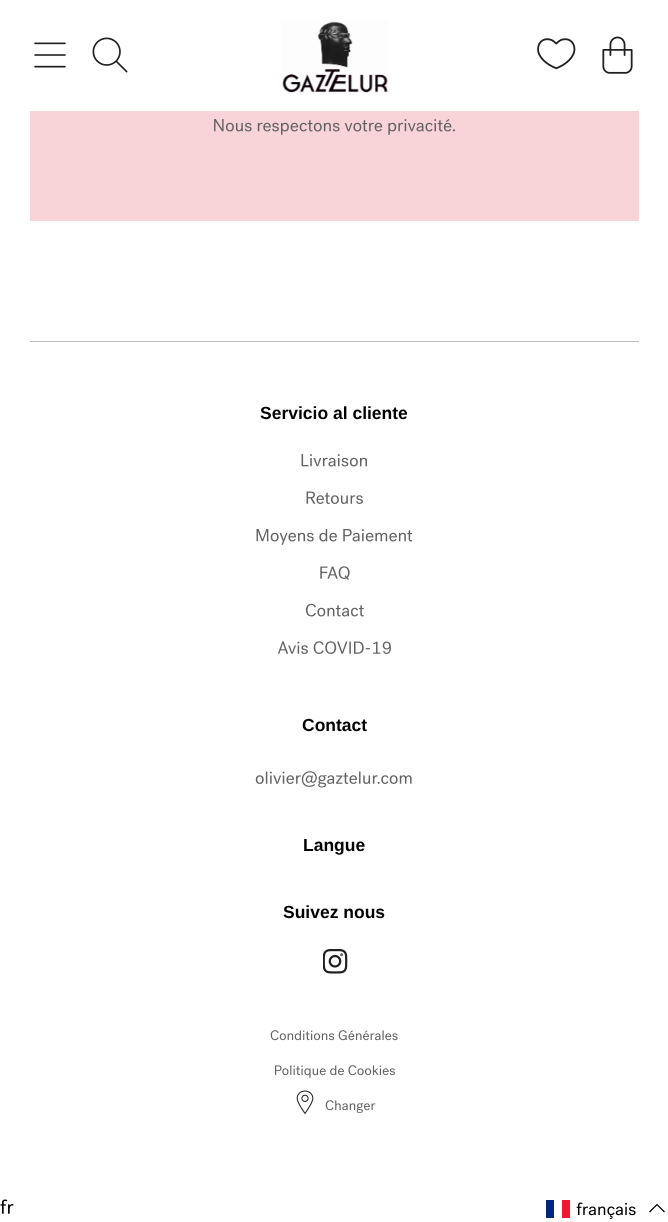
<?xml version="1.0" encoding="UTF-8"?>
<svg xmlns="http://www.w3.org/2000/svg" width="668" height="1222">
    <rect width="100%" height="100%" fill="#FFFFFF"/>
    <image x="34" y="42" width="32" height="26" href="img_01.png"/>
    <image x="92" y="37" width="36" height="36" href="img_02.png"/>
    <image x="282" y="21" width="106" height="72" href="img_03.png"/>
    <image x="537" y="38" width="39" height="32" href="img_04.png"/>
    <image x="602" y="36" width="31" height="38" href="img_05.png"/>
    <rect x="30" y="111" width="609" height="110" fill="#F8D4D8"/>
    <image x="214" y="119" width="241" height="16" href="img_06.png"/>
    <rect x="30" y="341" width="609" height="1" fill="#BDBDBD"/>
    <text x="260" y="419" font-family="Liberation Sans" font-size="17.5" font-weight="700" fill="#000000">Servicio al cliente</text>
    <image x="301" y="454" width="66" height="13" href="img_07.png"/>
    <image x="306" y="491" width="57" height="13" href="img_08.png"/>
    <image x="256" y="529" width="157" height="16" href="img_09.png"/>
    <image x="320" y="566" width="30" height="14" href="img_10.png"/>
    <image x="305" y="603" width="59" height="14" href="img_11.png"/>
    <image x="277" y="641" width="114" height="13" href="img_12.png"/>
    <text x="302" y="731" font-family="Liberation Sans" font-size="17.5" font-weight="700" fill="#000000">Contact</text>
    <image x="255" y="771" width="157" height="17" href="img_13.png"/>
    <text x="303" y="851" font-family="Liberation Sans" font-size="17.5" font-weight="700" fill="#000000">Langue</text>
    <text x="283" y="918" font-family="Liberation Sans" font-size="17.5" font-weight="700" fill="#000000">Suivez nous</text>
    <image x="323" y="949" width="25" height="25" href="img_14.png"/>
    <image x="270" y="1030" width="128" height="11" href="img_15.png"/>
    <image x="275" y="1065" width="120" height="13" href="img_16.png"/>
    <image x="296" y="1090" width="18" height="25" href="img_17.png"/>
    <image x="325" y="1100" width="51" height="13" href="img_18.png"/>
    <image x="0" y="1199" width="14" height="15" href="img_19.png"/>
    <rect x="546" y="1200" width="8" height="18" fill="#00267F"/>
    <rect x="562" y="1200" width="8" height="18" fill="#F31830"/>
    <image x="576" y="1202" width="60" height="17" href="img_20.png"/>
    <path d="M 664.5 1212 L 657 1204.5 L 649.5 1212" fill="none" stroke="#000000" stroke-width="1.2"/>
</svg>
